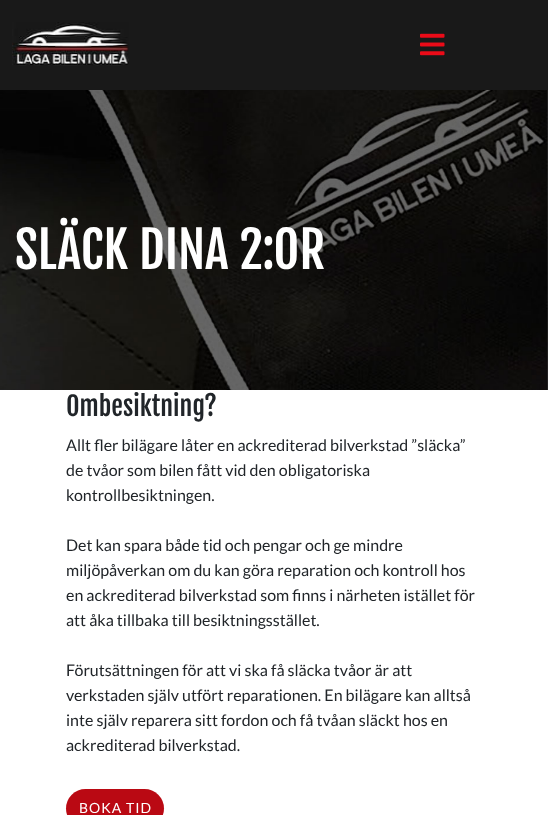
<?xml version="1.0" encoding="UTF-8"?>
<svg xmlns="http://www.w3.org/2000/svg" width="548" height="815">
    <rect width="100%" height="100%" fill="#FFFFFF"/>
    <rect x="0" y="0" width="548" height="90" fill="#191919"/>
    <image x="12" y="22" width="117" height="44" href="img_01.png"/>
    <image x="420" y="33" width="25" height="23" href="img_02.png"/>
    <image x="0" y="90" width="548" height="300" href="img_03.png"/>
    <text x="15" y="269" font-family="Fjalla One" font-size="50" fill="#FFFFFF">SLÄCK DINA 2:OR</text>
    <text x="66" y="416" font-family="Fjalla One" font-size="26" fill="#212529">Ombesiktning?</text>
    <text font-family="Lato" font-size="16" fill="#212529">
        <tspan x="66" y="451">Allt fler bilägare låter en ackrediterad bilverkstad ”släcka”</tspan>
        <tspan x="66" y="476">de tvåor som bilen fått vid den obligatoriska</tspan>
        <tspan x="66" y="501">kontrollbesiktningen.</tspan>
    </text>
    <text font-family="Lato" font-size="16" fill="#212529">
        <tspan x="66" y="551">Det kan spara både tid och pengar och ge mindre</tspan>
        <tspan x="66" y="576">miljöpåverkan om du kan göra reparation och kontroll hos</tspan>
        <tspan x="66" y="601">en ackrediterad bilverkstad som finns i närheten istället för</tspan>
        <tspan x="66" y="626">att åka tillbaka till besiktningsstället.</tspan>
    </text>
    <text font-family="Lato" font-size="16" fill="#212529">
        <tspan x="66" y="676">Förutsättningen för att vi ska få släcka tvåor är att</tspan>
        <tspan x="66" y="701">verkstaden själv utfört reparationen. En bilägare kan alltså</tspan>
        <tspan x="66" y="726">inte själv reparera sitt fordon och få tvåan släckt hos en</tspan>
        <tspan x="66" y="751">ackrediterad bilverkstad.</tspan>
    </text>
    <rect x="66" y="789" width="98" height="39" rx="19.5" fill="#BA0913"/>
    <text x="79" y="813" font-family="Lato" font-size="14" letter-spacing="1" fill="#FFFFFF">BOKA TID</text>
</svg>
